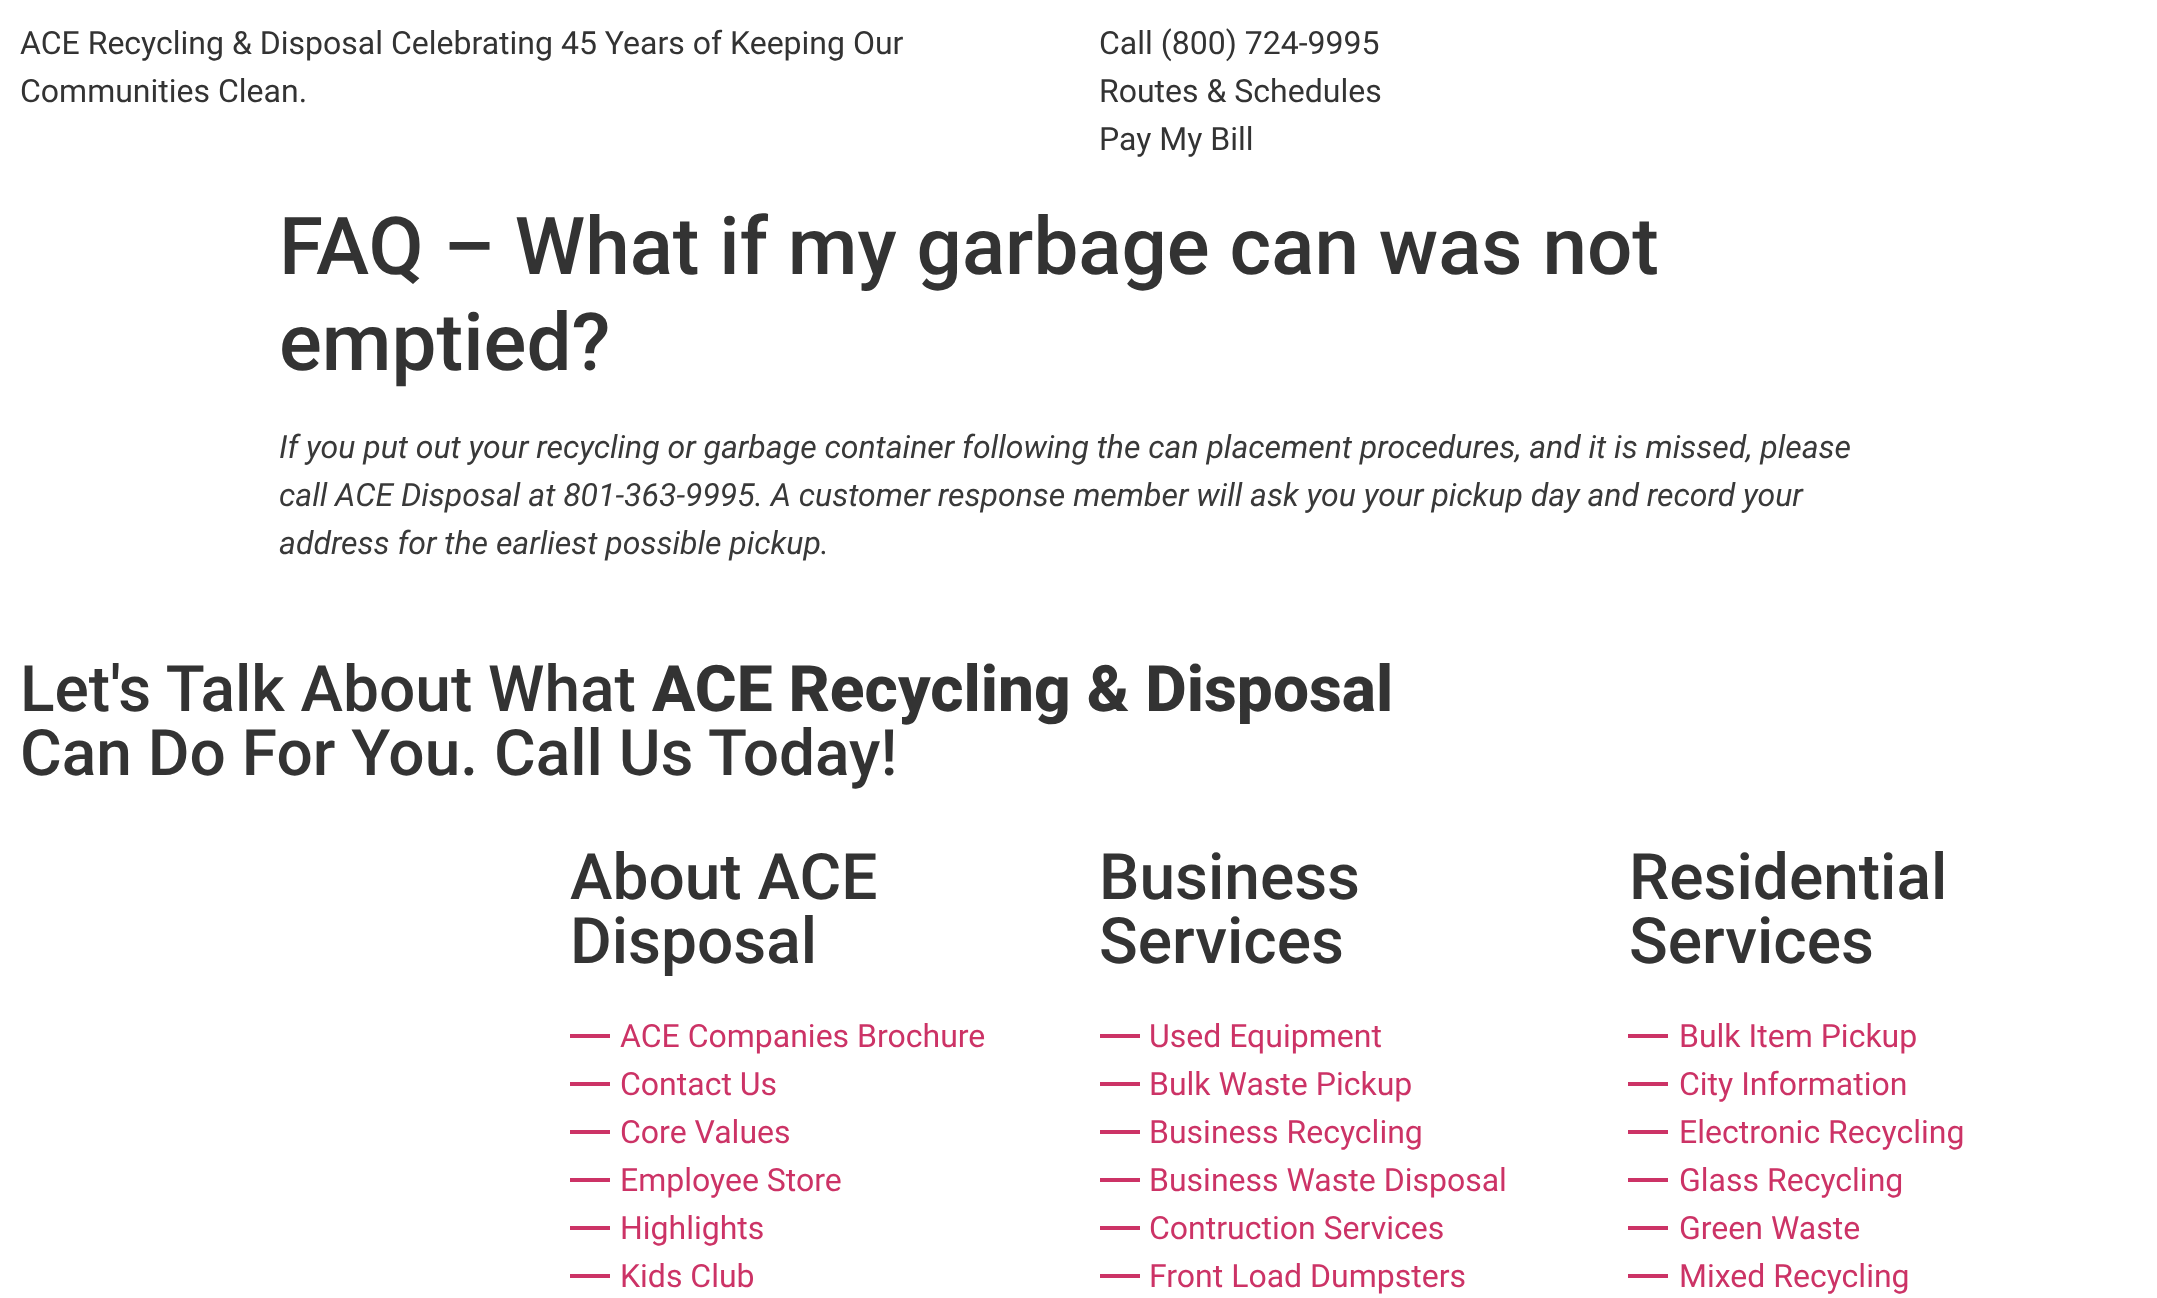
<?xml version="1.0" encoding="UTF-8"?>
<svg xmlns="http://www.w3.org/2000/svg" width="2157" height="1298">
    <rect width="100%" height="100%" fill="#FFFFFF"/>
    <text font-family="Roboto" font-size="32" fill="#333333">
        <tspan x="20" y="54">ACE Recycling &amp; Disposal Celebrating 45 Years of Keeping Our</tspan>
        <tspan x="20" y="102">Communities Clean.</tspan>
    </text>
    <text font-family="Roboto" font-size="32" fill="#333333">
        <tspan x="1099" y="54">Call (800) 724-9995</tspan>
        <tspan x="1099" y="102">Routes &amp; Schedules</tspan>
        <tspan x="1099" y="150">Pay My Bill</tspan>
    </text>
    <text font-family="Roboto" font-size="80" font-weight="500" fill="#333333">
        <tspan x="279" y="274">FAQ – What if my garbage can was not</tspan>
        <tspan x="279" y="370">emptied?</tspan>
    </text>
    <text font-family="Roboto" font-size="32" font-style="italic" fill="#393939">
        <tspan x="279" y="458">If you put out your recycling or garbage container following the can placement procedures, and it is missed, please</tspan>
        <tspan x="279" y="506">call ACE Disposal at 801-363-9995. A customer response member will ask you your pickup day and record your</tspan>
        <tspan x="279" y="554">address for the earliest possible pickup.</tspan>
    </text>
    <text x="20" y="711" font-family="Roboto" font-size="64" font-weight="500" fill="#333333">Let's Talk About What</text>
    <text x="652" y="711" font-family="Roboto" font-size="64" font-weight="800" fill="#333333">ACE Recycling &amp; Disposal</text>
    <text x="20" y="775" font-family="Roboto" font-size="64" font-weight="500" fill="#333333">Can Do For You. Call Us Today!</text>
    <text font-family="Roboto" font-size="64" font-weight="500" fill="#333333">
        <tspan x="570" y="899">About ACE</tspan>
        <tspan x="570" y="963">Disposal</tspan>
    </text>
    <rect x="570" y="1034" width="40" height="4" fill="#CC3366"/>
    <text x="620" y="1047" font-family="Roboto" font-size="32" fill="#CC3366">ACE Companies Brochure</text>
    <rect x="570" y="1082" width="40" height="4" fill="#CC3366"/>
    <text x="620" y="1095" font-family="Roboto" font-size="32" fill="#CC3366">Contact Us</text>
    <rect x="570" y="1130" width="40" height="4" fill="#CC3366"/>
    <text x="620" y="1143" font-family="Roboto" font-size="32" fill="#CC3366">Core Values</text>
    <rect x="570" y="1178" width="40" height="4" fill="#CC3366"/>
    <text x="620" y="1191" font-family="Roboto" font-size="32" fill="#CC3366">Employee Store</text>
    <rect x="570" y="1226" width="40" height="4" fill="#CC3366"/>
    <text x="620" y="1239" font-family="Roboto" font-size="32" fill="#CC3366">Highlights</text>
    <rect x="570" y="1274" width="40" height="4" fill="#CC3366"/>
    <text x="620" y="1287" font-family="Roboto" font-size="32" fill="#CC3366">Kids Club</text>
    <text font-family="Roboto" font-size="64" font-weight="500" fill="#333333">
        <tspan x="1099" y="899">Business</tspan>
        <tspan x="1099" y="963">Services</tspan>
    </text>
    <rect x="1100" y="1034" width="40" height="4" fill="#CC3366"/>
    <text x="1149" y="1047" font-family="Roboto" font-size="32" fill="#CC3366">Used Equipment</text>
    <rect x="1100" y="1082" width="40" height="4" fill="#CC3366"/>
    <text x="1149" y="1095" font-family="Roboto" font-size="32" fill="#CC3366">Bulk Waste Pickup</text>
    <rect x="1100" y="1130" width="40" height="4" fill="#CC3366"/>
    <text x="1149" y="1143" font-family="Roboto" font-size="32" fill="#CC3366">Business Recycling</text>
    <rect x="1100" y="1178" width="40" height="4" fill="#CC3366"/>
    <text x="1149" y="1191" font-family="Roboto" font-size="32" fill="#CC3366">Business Waste Disposal</text>
    <rect x="1100" y="1226" width="40" height="4" fill="#CC3366"/>
    <text x="1149" y="1239" font-family="Roboto" font-size="32" fill="#CC3366">Contruction Services</text>
    <rect x="1100" y="1274" width="40" height="4" fill="#CC3366"/>
    <text x="1149" y="1287" font-family="Roboto" font-size="32" fill="#CC3366">Front Load Dumpsters</text>
    <text font-family="Roboto" font-size="64" font-weight="500" fill="#333333">
        <tspan x="1629" y="899">Residential</tspan>
        <tspan x="1629" y="963">Services</tspan>
    </text>
    <rect x="1628" y="1034" width="40" height="4" fill="#CC3366"/>
    <text x="1679" y="1047" font-family="Roboto" font-size="32" fill="#CC3366">Bulk Item Pickup</text>
    <rect x="1628" y="1082" width="40" height="4" fill="#CC3366"/>
    <text x="1679" y="1095" font-family="Roboto" font-size="32" fill="#CC3366">City Information</text>
    <rect x="1628" y="1130" width="40" height="4" fill="#CC3366"/>
    <text x="1679" y="1143" font-family="Roboto" font-size="32" fill="#CC3366">Electronic Recycling</text>
    <rect x="1628" y="1178" width="40" height="4" fill="#CC3366"/>
    <text x="1679" y="1191" font-family="Roboto" font-size="32" fill="#CC3366">Glass Recycling</text>
    <rect x="1628" y="1226" width="40" height="4" fill="#CC3366"/>
    <text x="1679" y="1239" font-family="Roboto" font-size="32" fill="#CC3366">Green Waste</text>
    <rect x="1628" y="1274" width="40" height="4" fill="#CC3366"/>
    <text x="1679" y="1287" font-family="Roboto" font-size="32" fill="#CC3366">Mixed Recycling</text>
</svg>
